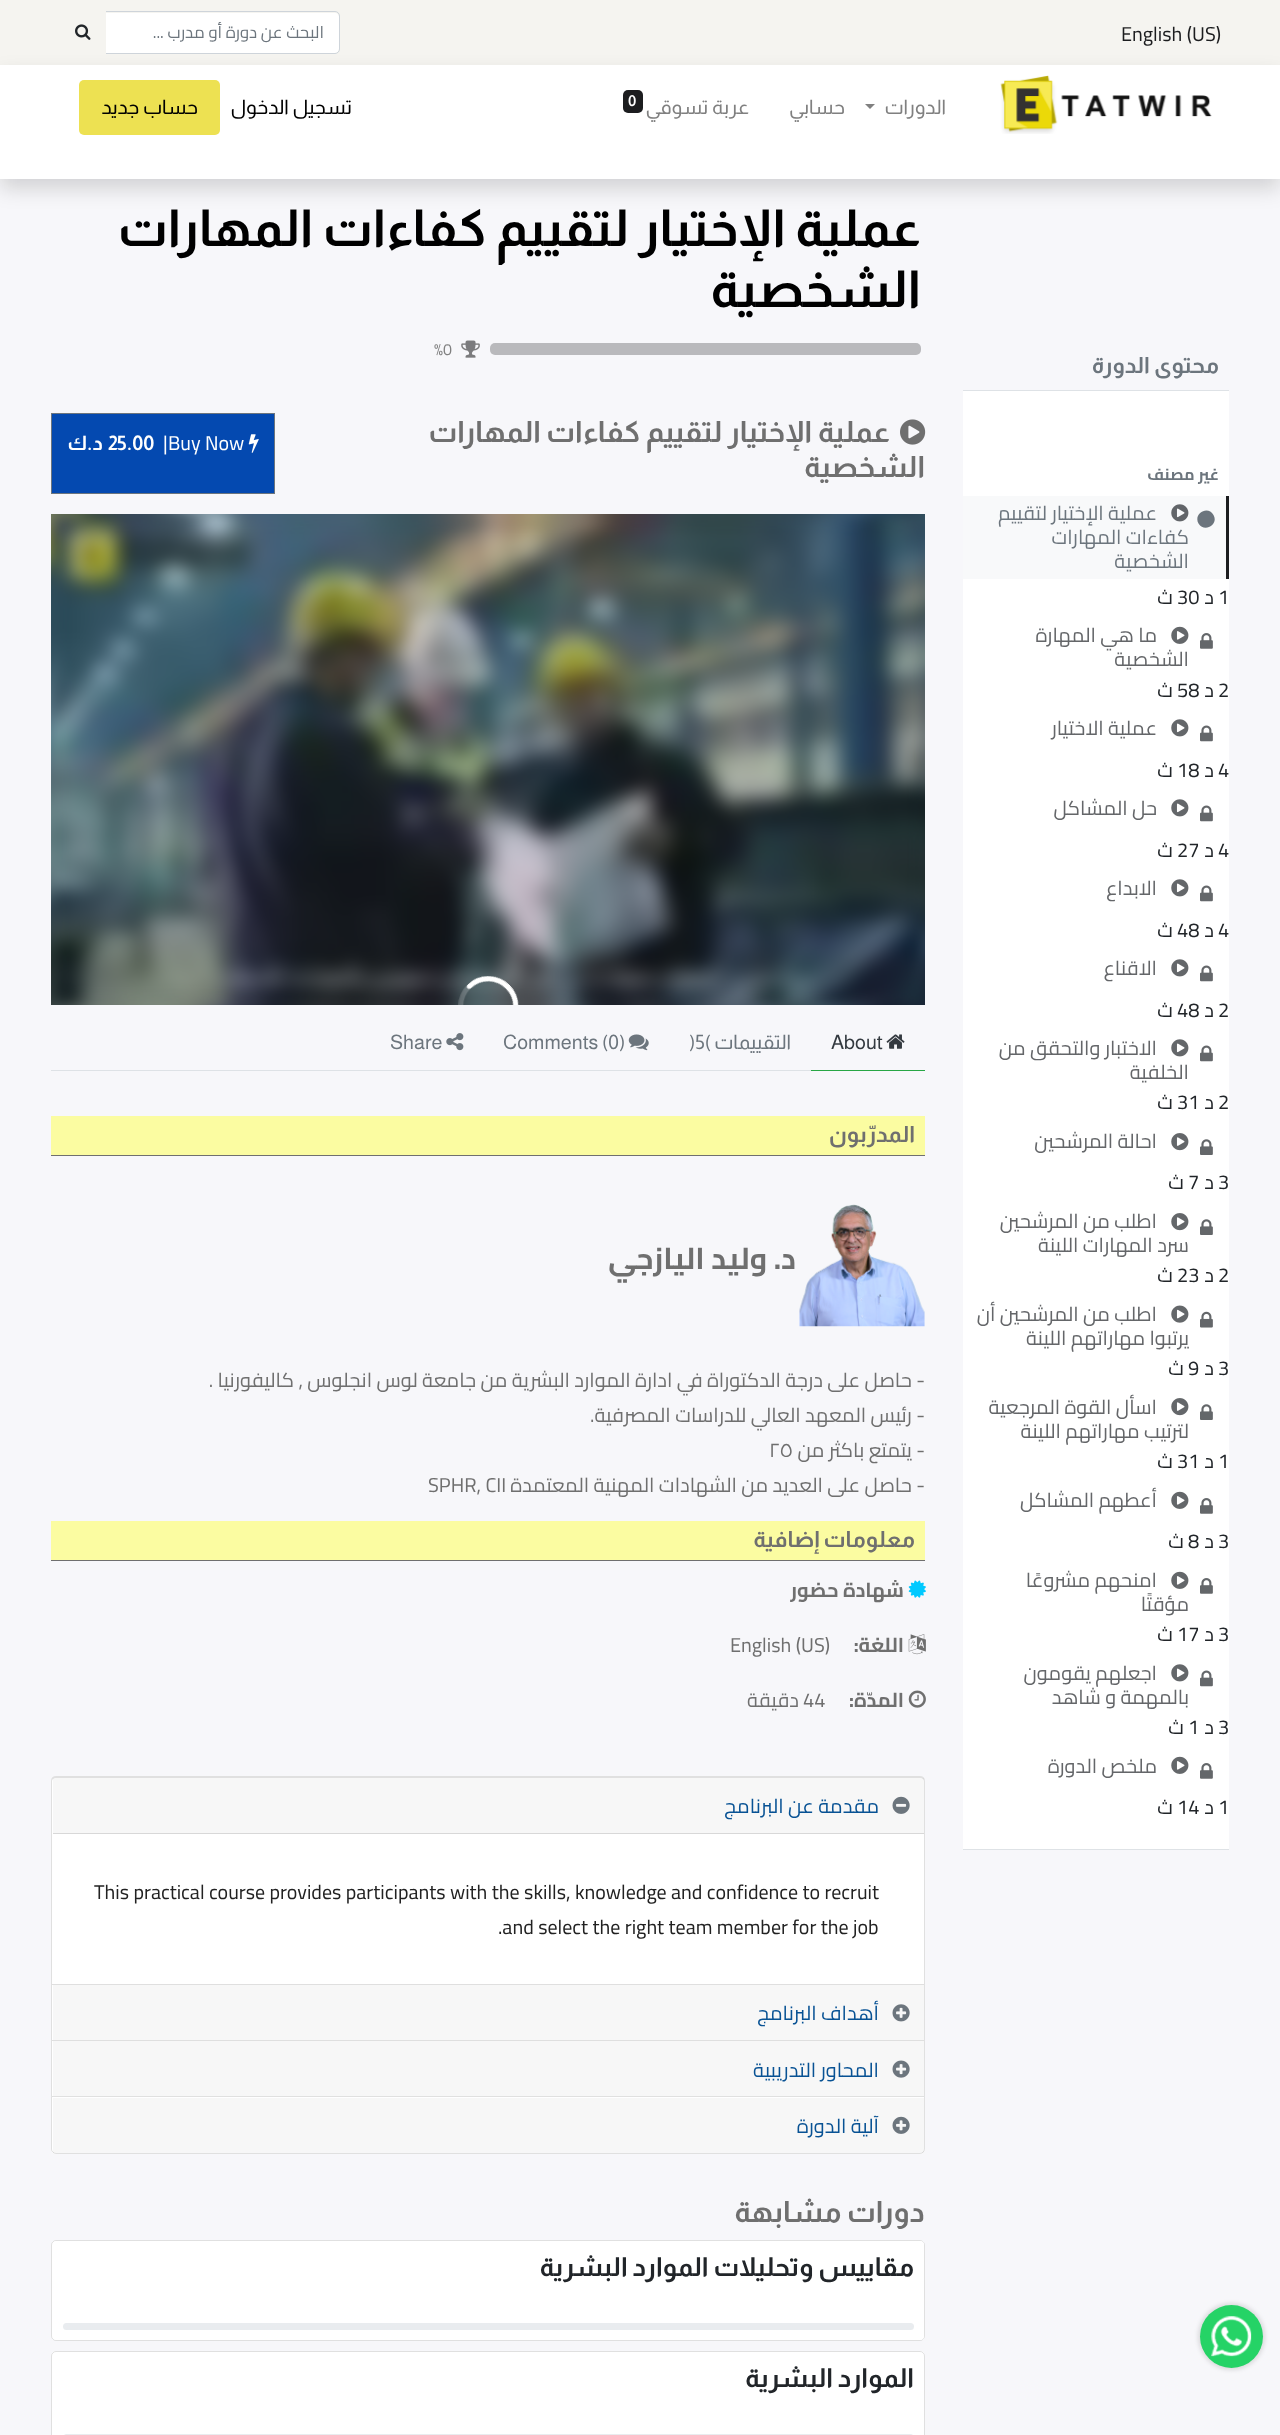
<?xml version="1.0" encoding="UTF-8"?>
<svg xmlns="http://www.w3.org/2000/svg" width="1280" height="2435">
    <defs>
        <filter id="blur1" x="-50%" y="-200%" width="200%" height="500%"><feGaussianBlur stdDeviation="2"/></filter>
        <filter id="blur2" x="-50%" y="-200%" width="200%" height="500%"><feGaussianBlur stdDeviation="10"/></filter>
    </defs>
    <rect width="100%" height="100%" fill="#F7F7FA"/>
    <rect x="1198" y="2303" width="67" height="67" rx="33.5" fill="#000000" fill-opacity="0.12" filter="url(#blur1)"/>
    <circle cx="1231.5" cy="2336.5" r="31.5" fill="#25D366"/>
    <image x="1211" y="2316" width="41" height="41" href="img_01.png"/>
    <rect x="0" y="0" width="1280" height="65" fill="#F5F4F0"/>
    <text x="1121" y="41" font-family="Cairo" font-size="20" fill="#1C1D1F">English (US)</text>
    <path d="M 106 13 H 335 C 337 13 339 15 339 17 V 49 C 339 51 337 53 335 53 H 106 Z" fill="#FFFFFF"/>
    <path d="M 105.5 11.5 H 335 C 337.5 11.5 339.5 13.5 339.5 16 V 49 C 339.5 51.5 337.5 53.5 335 53.5 H 105.5 Z" fill="none" stroke="#CED4DA"/>
    <text x="324" y="38" font-family="Cairo" font-size="16.75" direction="rtl" fill="#6C757D">البحث عن دورة أو مدرب ...</text>
    <rect x="0" y="75" width="1280" height="114" fill="#000000" fill-opacity="0.15" filter="url(#blur2)"/>
    <path d="M 64 11 H 106 V 54 H 64 C 61 54 59 52 59 49 V 16 C 59 13 61 11 64 11 Z" fill="#F5F4F0"/>
    <image x="75" y="24" width="16" height="16" href="img_02.png"/>
    <rect x="0" y="65" width="1280" height="114" fill="#FFFFFF"/>
    <image x="1000" y="75" width="212" height="59" href="img_03.png"/>
    <text x="946" y="114" font-family="Almarai" font-size="20" direction="rtl" fill="#808080">الدورات</text>
    <path d="M 865 104 H 875 L 870 109 Z" fill="#808080"/>
    <text x="845" y="114" font-family="Almarai" font-size="20" direction="rtl" fill="#808080">حسابي</text>
    <text x="749" y="114" font-family="Almarai" font-size="20" direction="rtl" fill="#808080">عربة تسوقي</text>
    <rect x="623" y="90" width="20" height="23" rx="5" fill="#1C1D1F"/>
    <text x="628" y="106" font-family="Almarai" font-size="15" font-weight="700" fill="#FFFFFF">0</text>
    <text x="352" y="114" font-family="Almarai" font-size="20" direction="rtl" fill="#000000">تسجيل الدخول</text>
    <rect x="79" y="80" width="141" height="55" rx="5" fill="#EDE152"/>
    <text x="198" y="114" font-family="Almarai" font-size="20" direction="rtl" fill="#000000">حساب جديد</text>
    <text font-family="Almarai" font-size="51" font-weight="700" direction="rtl" fill="#000000">
        <tspan x="921" y="246">عملية الإختيار لتقييم كفاءات المهارات</tspan>
        <tspan x="921" y="307">الشخصية</tspan>
    </text>
    <rect x="490" y="343" width="431" height="12" rx="5" fill="#B9B9BC"/>
    <image x="461" y="340" width="19" height="18" href="img_04.png"/>
    <text x="434" y="355" font-family="Cairo" font-size="16" fill="#808080">%0</text>
    <rect x="963" y="391" width="266" height="1458" fill="#FFFFFF"/>
    <rect x="963" y="1849" width="266" height="1" fill="#DEE2E6"/>
    <rect x="963" y="390" width="266" height="1" fill="#DEE2E6"/>
    <text x="1219" y="373" font-family="Almarai" font-size="22.5" font-weight="700" direction="rtl" fill="#6C757D">محتوى الدورة</text>
    <text x="1219" y="480" font-family="Cairo" font-size="16" font-weight="700" direction="rtl" fill="#6C757D">غير مصنف</text>
    <rect x="963" y="496" width="263" height="83" fill="#F8F9FA"/>
    <rect x="1226" y="496" width="3" height="83" fill="#1C1D1F"/>
    <path d="M 1213.5 515 C 1219 524.5 1204.5 533 1198.5 523.5 C 1193 513.5 1208 505 1213.5 515 Z" fill="#6C757D"/>
    <image x="1171" y="504" width="18" height="18" href="img_05.png"/>
    <text x="1157" y="520" font-family="Cairo" font-size="20" direction="rtl" fill="#6C757D">عملية الإختيار لتقييم</text>
    <text font-family="Cairo" font-size="20" direction="rtl" fill="#6C757D">
        <tspan x="1189" y="544">كفاءات المهارات</tspan>
        <tspan x="1189" y="568">الشخصية</tspan>
    </text>
    <text x="1218" y="604" font-family="Cairo" font-size="20" fill="#212529">1</text>
    <text x="1214" y="604" font-family="Cairo" font-size="20" direction="rtl" fill="#212529">د</text>
    <text x="1177" y="604" font-family="Cairo" font-size="20" fill="#212529">30</text>
    <text x="1173" y="604" font-family="Cairo" font-size="20" direction="rtl" fill="#212529">ث</text>
    <image x="1200" y="633" width="13" height="16" href="img_06.png"/>
    <image x="1171" y="626" width="18" height="18" href="img_07.png"/>
    <text x="1157" y="642" font-family="Cairo" font-size="20" direction="rtl" fill="#646669">ما هي المهارة</text>
    <text x="1189" y="666" font-family="Cairo" font-size="20" direction="rtl" fill="#646669">الشخصية</text>
    <text x="1218" y="697" font-family="Cairo" font-size="20" fill="#212529">2</text>
    <text x="1214" y="697" font-family="Cairo" font-size="20" direction="rtl" fill="#212529">د</text>
    <text x="1177" y="697" font-family="Cairo" font-size="20" fill="#212529">58</text>
    <text x="1173" y="697" font-family="Cairo" font-size="20" direction="rtl" fill="#212529">ث</text>
    <image x="1200" y="725" width="13" height="17" href="img_08.png"/>
    <image x="1171" y="719" width="18" height="18" href="img_09.png"/>
    <text x="1157" y="735" font-family="Cairo" font-size="20" direction="rtl" fill="#646669">عملية الاختيار</text>
    <text x="1218" y="777" font-family="Cairo" font-size="20" fill="#212529">4</text>
    <text x="1214" y="777" font-family="Cairo" font-size="20" direction="rtl" fill="#212529">د</text>
    <text x="1177" y="777" font-family="Cairo" font-size="20" fill="#212529">18</text>
    <text x="1173" y="777" font-family="Cairo" font-size="20" direction="rtl" fill="#212529">ث</text>
    <image x="1200" y="805" width="13" height="17" href="img_08.png"/>
    <image x="1171" y="799" width="18" height="18" href="img_09.png"/>
    <text x="1157" y="815" font-family="Cairo" font-size="20" direction="rtl" fill="#646669">حل المشاكل</text>
    <text x="1218" y="857" font-family="Cairo" font-size="20" fill="#212529">4</text>
    <text x="1214" y="857" font-family="Cairo" font-size="20" direction="rtl" fill="#212529">د</text>
    <text x="1177" y="857" font-family="Cairo" font-size="20" fill="#212529">27</text>
    <text x="1173" y="857" font-family="Cairo" font-size="20" direction="rtl" fill="#212529">ث</text>
    <image x="1200" y="885" width="13" height="17" href="img_08.png"/>
    <image x="1171" y="879" width="18" height="18" href="img_09.png"/>
    <text x="1157" y="895" font-family="Cairo" font-size="20" direction="rtl" fill="#646669">الابداع</text>
    <text x="1218" y="937" font-family="Cairo" font-size="20" fill="#212529">4</text>
    <text x="1214" y="937" font-family="Cairo" font-size="20" direction="rtl" fill="#212529">د</text>
    <text x="1177" y="937" font-family="Cairo" font-size="20" fill="#212529">48</text>
    <text x="1173" y="937" font-family="Cairo" font-size="20" direction="rtl" fill="#212529">ث</text>
    <image x="1200" y="965" width="13" height="17" href="img_08.png"/>
    <image x="1171" y="959" width="18" height="18" href="img_09.png"/>
    <text x="1157" y="975" font-family="Cairo" font-size="20" direction="rtl" fill="#646669">الاقناع</text>
    <text x="1218" y="1017" font-family="Cairo" font-size="20" fill="#212529">2</text>
    <text x="1214" y="1017" font-family="Cairo" font-size="20" direction="rtl" fill="#212529">د</text>
    <text x="1177" y="1017" font-family="Cairo" font-size="20" fill="#212529">48</text>
    <text x="1173" y="1017" font-family="Cairo" font-size="20" direction="rtl" fill="#212529">ث</text>
    <image x="1200" y="1045" width="13" height="17" href="img_08.png"/>
    <image x="1171" y="1039" width="18" height="18" href="img_09.png"/>
    <text x="1157" y="1055" font-family="Cairo" font-size="20" direction="rtl" fill="#646669">الاختبار والتحقق من</text>
    <text x="1189" y="1079" font-family="Cairo" font-size="20" direction="rtl" fill="#646669">الخلفية</text>
    <text x="1218" y="1109" font-family="Cairo" font-size="20" fill="#212529">2</text>
    <text x="1214" y="1109" font-family="Cairo" font-size="20" direction="rtl" fill="#212529">د</text>
    <text x="1177" y="1109" font-family="Cairo" font-size="20" fill="#212529">31</text>
    <text x="1173" y="1109" font-family="Cairo" font-size="20" direction="rtl" fill="#212529">ث</text>
    <image x="1200" y="1139" width="13" height="16" href="img_10.png"/>
    <image x="1171" y="1133" width="18" height="18" href="img_11.png"/>
    <text x="1157" y="1148" font-family="Cairo" font-size="20" direction="rtl" fill="#646669">احالة المرشحين</text>
    <text x="1218" y="1189" font-family="Cairo" font-size="20" fill="#212529">3</text>
    <text x="1214" y="1189" font-family="Cairo" font-size="20" direction="rtl" fill="#212529">د</text>
    <text x="1188" y="1189" font-family="Cairo" font-size="20" fill="#212529">7</text>
    <text x="1184" y="1189" font-family="Cairo" font-size="20" direction="rtl" fill="#212529">ث</text>
    <image x="1200" y="1219" width="13" height="16" href="img_10.png"/>
    <image x="1171" y="1213" width="18" height="18" href="img_11.png"/>
    <text x="1157" y="1228" font-family="Cairo" font-size="20" direction="rtl" fill="#646669">اطلب من المرشحين</text>
    <text x="1189" y="1252" font-family="Cairo" font-size="20" direction="rtl" fill="#646669">سرد المهارات اللينة</text>
    <text x="1218" y="1282" font-family="Cairo" font-size="20" fill="#212529">2</text>
    <text x="1214" y="1282" font-family="Cairo" font-size="20" direction="rtl" fill="#212529">د</text>
    <text x="1177" y="1282" font-family="Cairo" font-size="20" fill="#212529">23</text>
    <text x="1173" y="1282" font-family="Cairo" font-size="20" direction="rtl" fill="#212529">ث</text>
    <image x="1200" y="1311" width="13" height="17" href="img_12.png"/>
    <image x="1171" y="1305" width="18" height="18" href="img_13.png"/>
    <text x="1157" y="1321" font-family="Cairo" font-size="20" direction="rtl" fill="#646669">اطلب من المرشحين أن</text>
    <text x="1189" y="1345" font-family="Cairo" font-size="20" direction="rtl" fill="#646669">يرتبوا مهاراتهم اللينة</text>
    <text x="1218" y="1375" font-family="Cairo" font-size="20" fill="#212529">3</text>
    <text x="1214" y="1375" font-family="Cairo" font-size="20" direction="rtl" fill="#212529">د</text>
    <text x="1188" y="1375" font-family="Cairo" font-size="20" fill="#212529">9</text>
    <text x="1184" y="1375" font-family="Cairo" font-size="20" direction="rtl" fill="#212529">ث</text>
    <image x="1200" y="1404" width="13" height="16" href="img_10.png"/>
    <image x="1171" y="1398" width="18" height="18" href="img_11.png"/>
    <text x="1157" y="1414" font-family="Cairo" font-size="20" direction="rtl" fill="#646669">اسأل القوة المرجعية</text>
    <text x="1189" y="1438" font-family="Cairo" font-size="20" direction="rtl" fill="#646669">لترتيب مهاراتهم اللينة</text>
    <text x="1218" y="1468" font-family="Cairo" font-size="20" fill="#212529">1</text>
    <text x="1214" y="1468" font-family="Cairo" font-size="20" direction="rtl" fill="#212529">د</text>
    <text x="1177" y="1468" font-family="Cairo" font-size="20" fill="#212529">31</text>
    <text x="1173" y="1468" font-family="Cairo" font-size="20" direction="rtl" fill="#212529">ث</text>
    <image x="1200" y="1498" width="13" height="16" href="img_06.png"/>
    <image x="1171" y="1491" width="18" height="18" href="img_07.png"/>
    <text x="1157" y="1507" font-family="Cairo" font-size="20" direction="rtl" fill="#646669">أعطهم المشاكل</text>
    <text x="1218" y="1548" font-family="Cairo" font-size="20" fill="#212529">3</text>
    <text x="1214" y="1548" font-family="Cairo" font-size="20" direction="rtl" fill="#212529">د</text>
    <text x="1188" y="1548" font-family="Cairo" font-size="20" fill="#212529">8</text>
    <text x="1184" y="1548" font-family="Cairo" font-size="20" direction="rtl" fill="#212529">ث</text>
    <image x="1200" y="1578" width="13" height="16" href="img_06.png"/>
    <image x="1171" y="1571" width="18" height="18" href="img_07.png"/>
    <text x="1157" y="1587" font-family="Cairo" font-size="20" direction="rtl" fill="#646669">امنحهم مشروعًا</text>
    <text x="1189" y="1611" font-family="Cairo" font-size="20" direction="rtl" fill="#646669">مؤقتًا</text>
    <text x="1218" y="1641" font-family="Cairo" font-size="20" fill="#212529">3</text>
    <text x="1214" y="1641" font-family="Cairo" font-size="20" direction="rtl" fill="#212529">د</text>
    <text x="1177" y="1641" font-family="Cairo" font-size="20" fill="#212529">17</text>
    <text x="1173" y="1641" font-family="Cairo" font-size="20" direction="rtl" fill="#212529">ث</text>
    <image x="1200" y="1670" width="13" height="17" href="img_08.png"/>
    <image x="1171" y="1664" width="18" height="18" href="img_09.png"/>
    <text x="1157" y="1680" font-family="Cairo" font-size="20" direction="rtl" fill="#646669">اجعلهم يقومون</text>
    <text x="1189" y="1704" font-family="Cairo" font-size="20" direction="rtl" fill="#646669">بالمهمة و شاهد</text>
    <text x="1218" y="1734" font-family="Cairo" font-size="20" fill="#212529">3</text>
    <text x="1214" y="1734" font-family="Cairo" font-size="20" direction="rtl" fill="#212529">د</text>
    <text x="1188" y="1734" font-family="Cairo" font-size="20" fill="#212529">1</text>
    <text x="1184" y="1734" font-family="Cairo" font-size="20" direction="rtl" fill="#212529">ث</text>
    <image x="1200" y="1763" width="13" height="16" href="img_06.png"/>
    <image x="1171" y="1756" width="18" height="18" href="img_07.png"/>
    <text x="1157" y="1773" font-family="Cairo" font-size="20" direction="rtl" fill="#646669">ملخص الدورة</text>
    <text x="1218" y="1814" font-family="Cairo" font-size="20" fill="#212529">1</text>
    <text x="1214" y="1814" font-family="Cairo" font-size="20" direction="rtl" fill="#212529">د</text>
    <text x="1177" y="1814" font-family="Cairo" font-size="20" fill="#212529">14</text>
    <text x="1173" y="1814" font-family="Cairo" font-size="20" direction="rtl" fill="#212529">ث</text>
    <image x="900" y="419" width="26" height="26" href="img_14.png"/>
    <text x="890" y="442" font-family="Almarai" font-size="29.3" font-weight="700" direction="rtl" fill="#6F6F6F">عملية الإختيار لتقييم كفاءات المهارات</text>
    <text x="925" y="477" font-family="Almarai" font-size="29.3" font-weight="700" direction="rtl" fill="#6F6F6F">الشخصية</text>
    <rect x="51.5" y="413.5" width="223" height="80" fill="#0449B0" stroke="#6C757D"/>
    <image x="248" y="434" width="11" height="19" href="img_15.png"/>
    <text x="168" y="450" font-family="Cairo" font-size="20" fill="#FFFFFF">Buy Now</text>
    <text x="163" y="450" font-family="Cairo" font-size="20" fill="#FFFFFF">|</text>
    <text x="108" y="450" font-family="Almarai" font-size="20" font-weight="700" fill="#FFFFFF">25.00</text>
    <text x="103" y="450" font-family="Almarai" font-size="20" font-weight="700" direction="rtl" fill="#FFFFFF">د.ك</text>
    <image x="51" y="514" width="874" height="491" href="img_16.png"/>
    <rect x="51" y="1070" width="760" height="1" fill="#DEE2E6"/>
    <rect x="811" y="1070" width="114" height="1" fill="#28A745"/>
    <image x="886" y="1034" width="19" height="15" href="img_17.png"/>
    <text x="831" y="1049" font-family="Almarai" font-size="20" fill="#343A40">About</text>
    <text x="791" y="1049" font-family="Almarai" font-size="20" direction="rtl" fill="#6C757D">التقييمات</text>
    <text x="689" y="1049" font-family="Almarai" font-size="20" fill="#6C757D">)5(</text>
    <image x="628" y="1034" width="21" height="17" href="img_18.png"/>
    <text x="503" y="1049" font-family="Almarai" font-size="20" fill="#6C757D">Comments (0)</text>
    <image x="446" y="1033" width="18" height="18" href="img_19.png"/>
    <text x="390" y="1049" font-family="Almarai" font-size="20" fill="#6C757D">Share</text>
    <rect x="51" y="1116" width="874" height="39" fill="#FBFCA1"/>
    <rect x="51" y="1155" width="874" height="1" fill="#6F6F6F"/>
    <text x="915" y="1142" font-family="Almarai" font-size="22.5" font-weight="700" direction="rtl" fill="#6F6F6F">المدرّبون</text>
    <image x="799" y="1204" width="126" height="123" href="img_20.png"/>
    <text x="796" y="1269" font-family="Cairo" font-size="30" font-weight="700" direction="rtl" fill="#6F6F6F">د. وليد اليازجي</text>
    <text font-family="Cairo" font-size="20" direction="rtl" fill="#6F6F6F">
        <tspan x="925" y="1387">- حاصل على درجة الدكتوراة في ادارة الموارد البشرية من جامعة لوس انجلوس , كاليفورنيا .</tspan>
        <tspan x="925" y="1422">- رئيس المعهد العالي للدراسات المصرفية.</tspan>
        <tspan x="925" y="1457">- يتمتع باكثر من</tspan>
    </text>
    <text x="769" y="1457" font-family="Cairo" font-size="20" fill="#6F6F6F">٢٥</text>
    <text x="925" y="1492" font-family="Cairo" font-size="20" direction="rtl" fill="#6F6F6F">- حاصل على العديد من الشهادات المهنية المعتمدة</text>
    <text x="428" y="1492" font-family="Cairo" font-size="20" fill="#6F6F6F">SPHR, CII</text>
    <rect x="51" y="1521" width="874" height="39" fill="#FBFCA1"/>
    <rect x="51" y="1560" width="874" height="1" fill="#6F6F6F"/>
    <text x="915" y="1547" font-family="Almarai" font-size="22.5" font-weight="700" direction="rtl" fill="#6F6F6F">معلومات إضافية</text>
    <image x="908" y="1580" width="18" height="18" href="img_21.png"/>
    <text x="904" y="1597" font-family="Cairo" font-size="20" font-weight="700" direction="rtl" fill="#6F6F6F">شهادة حضور</text>
    <image x="908" y="1634" width="18" height="21" href="img_22.png"/>
    <text x="904" y="1652" font-family="Cairo" font-size="20" font-weight="700" direction="rtl" fill="#6F6F6F">اللغة:</text>
    <text x="730" y="1652" font-family="Cairo" font-size="20" fill="#6F6F6F">English (US)</text>
    <image x="908" y="1690" width="18" height="18" href="img_23.png"/>
    <text x="904" y="1707" font-family="Cairo" font-size="20" font-weight="700" direction="rtl" fill="#6F6F6F">المدّة:</text>
    <text x="803" y="1707" font-family="Cairo" font-size="20" fill="#6F6F6F">44</text>
    <text x="799" y="1707" font-family="Cairo" font-size="20" direction="rtl" fill="#6F6F6F">دقيقة</text>
    <path d="M 56 1776 H 920 C 923 1776 925 1778 925 1781 V 1984 H 51 V 1781 C 51 1778 53 1776 56 1776 Z" fill="#FFFFFF"/>
    <path d="M 56 1776 H 920 C 923 1776 925 1778 925 1781 V 1984 H 51 V 1781 C 51 1778 53 1776 56 1776 Z M 56 1778 H 920 C 922 1778 924 1779 924 1781 V 1984 H 52 V 1781 C 52 1779 54 1778 56 1778 Z" fill="#000000" fill-opacity="0.12" fill-rule="evenodd"/>
    <rect x="53" y="1778" width="871" height="55" fill="#000000" fill-opacity="0.03"/>
    <rect x="53" y="1833" width="871" height="1" fill="#D8D8D8"/>
    <image x="892" y="1796" width="18" height="18" href="img_24.png"/>
    <text x="879" y="1813" font-family="Cairo" font-size="20" direction="rtl" fill="#085294">مقدمة عن البرنامج</text>
    <text x="94" y="1899" font-family="Cairo" font-size="20" fill="#222222">This practical course provides participants with the skills, knowledge and confidence to recruit</text>
    <text x="498" y="1934" font-family="Cairo" font-size="20" fill="#222222">.and select the right team member for the job</text>
    <rect x="51" y="1984" width="874" height="112" fill="#FFFFFF"/>
    <path d="M 51 1984 H 925 L 924 1985 H 52 Z" fill="#DFDFDF"/>
    <path d="M 925 1984 V 2040 H 924 V 1985 Z" fill="#000000" fill-opacity="0.12"/>
    <path d="M 51 2040 V 1984 L 52 1985 V 2040 Z" fill="#000000" fill-opacity="0.12"/>
    <rect x="53" y="1985" width="871" height="55" fill="#F7F7F7"/>
    <image x="892" y="2004" width="18" height="18" href="img_25.png"/>
    <text x="879" y="2020" font-family="Cairo" font-size="20" direction="rtl" fill="#085294">أهداف البرنامج</text>
    <path d="M 51 2040 H 925 L 924 2041 H 52 Z" fill="#DFDFDF"/>
    <path d="M 925 2040 V 2096 H 924 V 2041 Z" fill="#000000" fill-opacity="0.12"/>
    <path d="M 51 2096 V 2040 L 52 2041 V 2096 Z" fill="#000000" fill-opacity="0.12"/>
    <rect x="53" y="2041" width="871" height="55" fill="#F7F7F7"/>
    <image x="892" y="2060" width="18" height="18" href="img_26.png"/>
    <text x="879" y="2077" font-family="Cairo" font-size="20" direction="rtl" fill="#085294">المحاور التدريبية</text>
    <path d="M 51 2096 H 925 V 2149 C 925 2152 923 2154 920 2154 H 56 C 53 2154 51 2152 51 2149 Z" fill="#FFFFFF"/>
    <path d="M 51.5 2096.5 H 924.5 V 2149 C 924.5 2151.5 922.5 2153.5 920 2153.5 H 56 C 53.5 2153.5 51.5 2151.5 51.5 2149 Z" fill="none" stroke="#000000" stroke-opacity="0.12"/>
    <rect x="53" y="2098" width="871" height="55" fill="#000000" fill-opacity="0.03"/>
    <image x="892" y="2116" width="18" height="18" href="img_27.png"/>
    <text x="879" y="2133" font-family="Cairo" font-size="20" direction="rtl" fill="#085294">آلية الدورة</text>
    <text x="925" y="2222" font-family="Almarai" font-size="29.3" font-weight="700" direction="rtl" fill="#6F6F6F">دورات مشابهة</text>
    <rect x="51" y="2240" width="874" height="101" rx="5" fill="#FFFFFF"/>
    <rect x="51.5" y="2240.5" width="873" height="100" rx="4.5" fill="none" stroke="#000000" stroke-opacity="0.12"/>
    <rect x="53" y="2241" width="871" height="99" rx="4" fill="#FFFFFF" fill-opacity="0.9"/>
    <text x="914" y="2276" font-family="Almarai" font-size="26.1" font-weight="700" direction="rtl" fill="#212529">مقاييس وتحليلات الموارد البشرية</text>
    <rect x="63" y="2323" width="851" height="7" rx="3.5" fill="#E9ECEF"/>
    <path d="M 56 2351 H 920 C 923 2351 925 2353 925 2356 V 2435 H 51 V 2356 C 51 2353 53 2351 56 2351 Z" fill="#FFFFFF"/>
    <rect x="51.5" y="2351.5" width="873" height="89" rx="4.5" fill="none" stroke="#000000" stroke-opacity="0.12"/>
    <text x="914" y="2387" font-family="Almarai" font-size="26.1" font-weight="700" direction="rtl" fill="#212529">الموارد البشرية</text>
    <path d="M 66.5 2434 H 910.5 C 912.5 2434 914 2435.5 914 2437.5 V 2435 H 63 V 2437.5 C 63 2435.5 64.5 2434 66.5 2434 Z" fill="#E9ECEF"/>
</svg>
